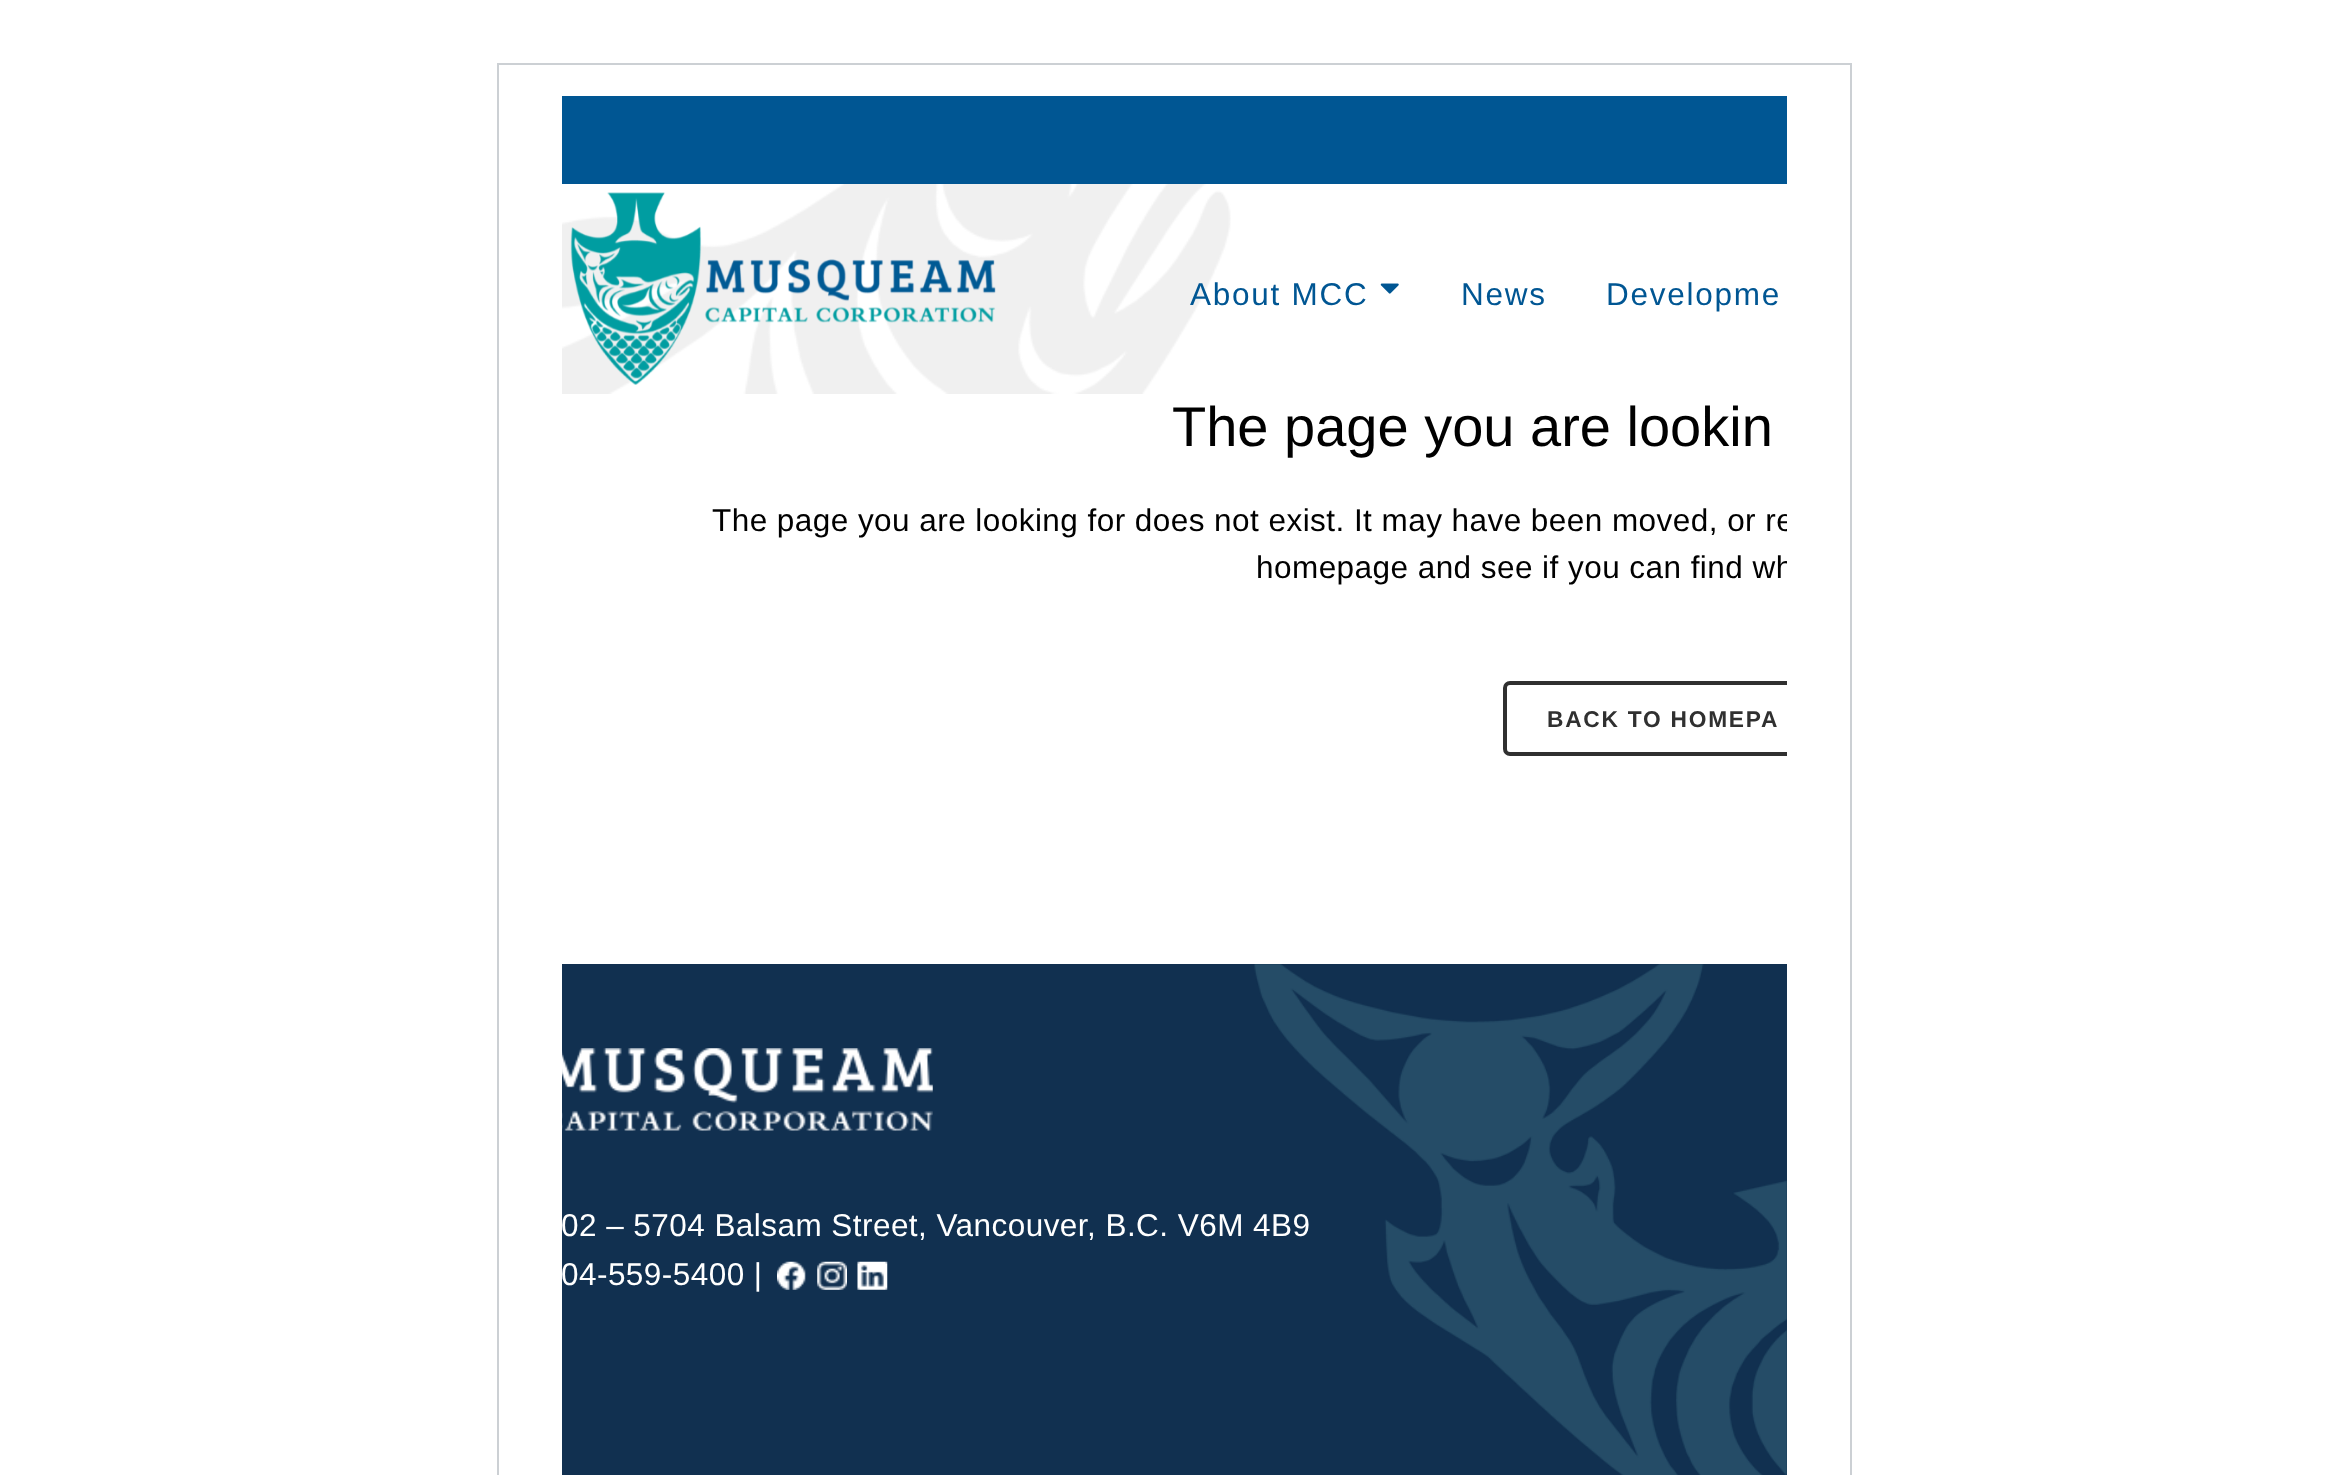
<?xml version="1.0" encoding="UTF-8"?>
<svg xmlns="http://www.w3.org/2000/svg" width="2346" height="1475">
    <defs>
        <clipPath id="clip1"><rect x="632" y="324" width="1155" height="640"/></clipPath>
    </defs>
    <rect width="100%" height="100%" fill="#FFFFFF"/>
    <rect x="498" y="64" width="1353" height="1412" fill="none" stroke="#CCD0D4" stroke-width="2"/>
    <rect x="562" y="96" width="1225" height="88" fill="#005693"/>
    <image x="562" y="184" width="669" height="210" href="img_01.png"/>
    <image x="570" y="192" width="426" height="193" href="img_02.png"/>
    <text x="1190" y="305" font-family="Liberation Sans" font-size="31.5" letter-spacing="1.75" fill="#005693">About MCC</text>
    <image x="1380" y="283" width="19" height="11" href="img_03.png"/>
    <text x="1461" y="305" font-family="Liberation Sans" font-size="31.5" letter-spacing="1.75" fill="#005693">News</text>
    <text x="1606" y="305" font-family="Liberation Sans" font-size="31.5" letter-spacing="1.75" fill="#005693">Developme</text>
    <text x="1172" y="446" font-family="Liberation Sans" font-size="56" fill="#000000">The page you are lookin</text>
    <g clip-path="url(#clip1)">
        <text x="712" y="531" font-family="Liberation Sans" font-size="31.5" letter-spacing="0.45" fill="#000000">The page you are looking for does not exist. It may have been moved, or re</text>
        <text x="1256" y="578" font-family="Liberation Sans" font-size="31.5" letter-spacing="0.45" fill="#000000">homepage and see if you can find wh</text>
        <rect x="1505" y="683" width="352" height="71" rx="5" fill="none" stroke="#303030" stroke-width="4"/>
    </g>
    <text x="1547" y="727" font-family="Liberation Sans" font-size="22.75" font-weight="700" letter-spacing="1.75" fill="#303030">BACK TO HOMEPA</text>
    <rect x="562" y="964" width="1225" height="511" fill="#113050"/>
    <image x="1254" y="964" width="533" height="511" href="img_04.png"/>
    <image x="562" y="1048" width="371" height="83" href="img_05.png"/>
    <text font-family="Liberation Sans" font-size="31.5" letter-spacing="0.45" fill="#FFFFFF">
        <tspan x="561" y="1236">02 – 5704 Balsam Street, Vancouver, B.C. V6M 4B9</tspan>
        <tspan x="561" y="1285">04-559-5400 |</tspan>
    </text>
    <image x="777" y="1261" width="29" height="29" href="img_06.png"/>
    <image x="817" y="1261" width="30" height="29" href="img_07.png"/>
    <image x="857" y="1261" width="31" height="29" href="img_08.png"/>
</svg>
